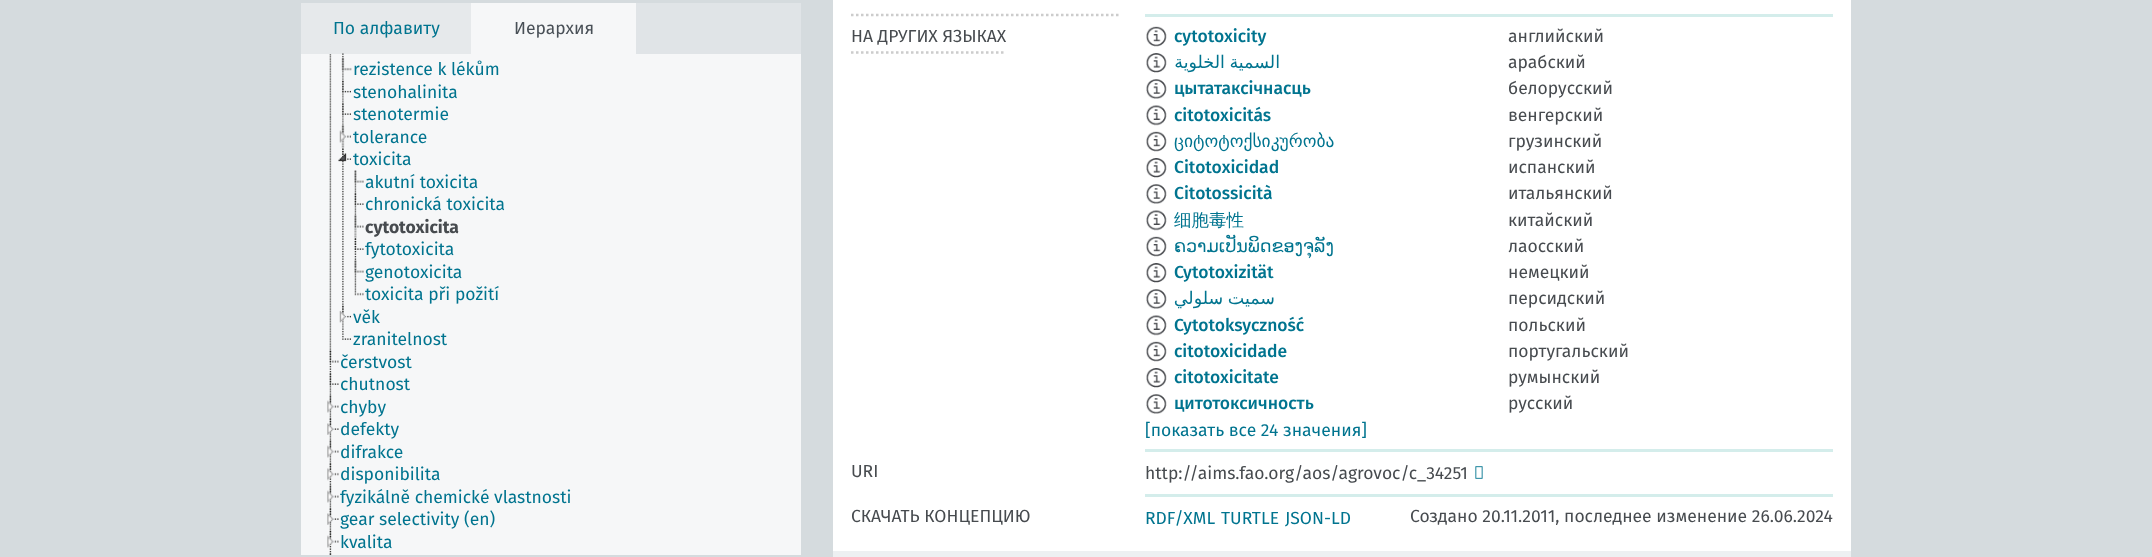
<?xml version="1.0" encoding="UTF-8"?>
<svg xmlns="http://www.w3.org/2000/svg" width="2152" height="557">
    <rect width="100%" height="100%" fill="#D5DBDE"/>
    <rect x="636" y="3" width="165" height="51" fill="#E0E4E7"/>
    <rect x="301" y="3" width="170" height="51" fill="#E6E9EB"/>
    <text x="333" y="34" font-family="Fira Sans" font-size="17.5" fill="#00748F">По алфавиту</text>
    <rect x="471" y="3" width="165" height="51" fill="#F6F7F8"/>
    <text x="514" y="34" font-family="Fira Sans" font-size="17.5" fill="#495057">Иерархия</text>
    <rect x="301" y="54" width="500" height="501" fill="#F6F7F8"/>
    <image x="329" y="54" width="3" height="298" href="img_01.png"/>
    <image x="342" y="53" width="2" height="5" href="img_02.png"/>
    <image x="342" y="58" width="2" height="23" href="img_03.png"/>
    <image x="341" y="58" width="11" height="13" href="img_04.png"/>
    <text x="353" y="75" font-family="Fira Sans" font-size="17.5" fill="#00748F">rezistence k lékům</text>
    <image x="342" y="80" width="2" height="23" href="img_05.png"/>
    <image x="342" y="81" width="9" height="12" href="img_06.png"/>
    <text x="353" y="98" font-family="Fira Sans" font-size="17.5" fill="#00748F">stenohalinita</text>
    <image x="342" y="103" width="2" height="23" href="img_03.png"/>
    <image x="342" y="103" width="9" height="12" href="img_07.png"/>
    <text x="353" y="120" font-family="Fira Sans" font-size="17.5" fill="#00748F">stenotermie</text>
    <image x="341" y="125" width="4" height="23" href="img_08.png"/>
    <image x="339" y="125" width="12" height="18" href="img_09.png"/>
    <text x="353" y="143" font-family="Fira Sans" font-size="17.5" fill="#00748F">tolerance</text>
    <image x="342" y="148" width="2" height="158" href="img_10.png"/>
    <image x="338" y="148" width="13" height="14" href="img_11.png"/>
    <text x="353" y="165" font-family="Fira Sans" font-size="17.5" fill="#00748F">toxicita</text>
    <image x="354" y="170" width="3" height="23" href="img_12.png"/>
    <image x="354" y="170" width="10" height="13" href="img_13.png"/>
    <text x="365" y="188" font-family="Fira Sans" font-size="17.5" fill="#00748F">akutní toxicita</text>
    <image x="354" y="193" width="3" height="23" href="img_14.png"/>
    <image x="354" y="193" width="10" height="12" href="img_15.png"/>
    <text x="365" y="210" font-family="Fira Sans" font-size="17.5" fill="#00748F">chronická toxicita</text>
    <image x="354" y="215" width="3" height="23" href="img_16.png"/>
    <image x="354" y="215" width="10" height="13" href="img_17.png"/>
    <text x="365" y="233" font-family="Fira Sans" font-size="17.5" font-weight="700" fill="#474B4F">cytotoxicita</text>
    <image x="354" y="238" width="3" height="22" href="img_18.png"/>
    <image x="354" y="238" width="10" height="12" href="img_19.png"/>
    <text x="365" y="255" font-family="Fira Sans" font-size="17.5" fill="#00748F">fytotoxicita</text>
    <image x="354" y="260" width="3" height="23" href="img_20.png"/>
    <image x="354" y="260" width="10" height="13" href="img_21.png"/>
    <text x="365" y="278" font-family="Fira Sans" font-size="17.5" fill="#00748F">genotoxicita</text>
    <image x="354" y="283" width="10" height="13" href="img_22.png"/>
    <text x="365" y="300" font-family="Fira Sans" font-size="17.5" fill="#00748F">toxicita při požití</text>
    <image x="342" y="305" width="2" height="23" href="img_23.png"/>
    <image x="339" y="306" width="12" height="17" href="img_24.png"/>
    <text x="353" y="323" font-family="Fira Sans" font-size="17.5" fill="#00748F">věk</text>
    <image x="342" y="328" width="9" height="12" href="img_25.png"/>
    <text x="353" y="345" font-family="Fira Sans" font-size="17.5" fill="#00748F">zranitelnost</text>
    <image x="329" y="351" width="3" height="22" href="img_26.png"/>
    <image x="329" y="350" width="10" height="13" href="img_27.png"/>
    <text x="340" y="368" font-family="Fira Sans" font-size="17.5" fill="#00748F">čerstvost</text>
    <image x="329" y="373" width="3" height="23" href="img_14.png"/>
    <image x="329" y="373" width="10" height="12" href="img_28.png"/>
    <text x="340" y="390" font-family="Fira Sans" font-size="17.5" fill="#00748F">chutnost</text>
    <image x="329" y="395" width="3" height="23" href="img_29.png"/>
    <image x="327" y="395" width="12" height="18" href="img_30.png"/>
    <text x="340" y="413" font-family="Fira Sans" font-size="17.5" fill="#00748F">chyby</text>
    <image x="329" y="418" width="3" height="23" href="img_14.png"/>
    <image x="327" y="418" width="12" height="17" href="img_31.png"/>
    <text x="340" y="435" font-family="Fira Sans" font-size="17.5" fill="#00748F">defekty</text>
    <image x="329" y="440" width="3" height="23" href="img_29.png"/>
    <image x="327" y="440" width="12" height="18" href="img_30.png"/>
    <text x="340" y="458" font-family="Fira Sans" font-size="17.5" fill="#00748F">difrakce</text>
    <image x="329" y="463" width="3" height="22" href="img_18.png"/>
    <image x="327" y="463" width="12" height="18" href="img_32.png"/>
    <text x="340" y="480" font-family="Fira Sans" font-size="17.5" fill="#00748F">disponibilita</text>
    <image x="329" y="485" width="3" height="23" href="img_12.png"/>
    <image x="327" y="485" width="12" height="18" href="img_33.png"/>
    <text x="340" y="503" font-family="Fira Sans" font-size="17.5" fill="#00748F">fyzikálně chemické vlastnosti</text>
    <image x="329" y="508" width="3" height="23" href="img_34.png"/>
    <image x="327" y="508" width="12" height="17" href="img_35.png"/>
    <text x="340" y="525" font-family="Fira Sans" font-size="17.5" fill="#00748F">gear selectivity (en)</text>
    <image x="329" y="531" width="3" height="22" href="img_36.png"/>
    <image x="327" y="530" width="12" height="18" href="img_37.png"/>
    <text x="340" y="548" font-family="Fira Sans" font-size="17.5" fill="#00748F">kvalita</text>
    <image x="329" y="553" width="3" height="2" href="img_38.png"/>
    <image x="329" y="553" width="3" height="2" href="img_39.png"/>
    <rect x="833" y="0" width="1018" height="551" fill="#FFFFFF"/>
    <path d="M 851 15 H 1120" fill="none" stroke="#CCCCCC" stroke-width="2.5" stroke-dasharray="2.5 2.5"/>
    <rect x="1145" y="14" width="688" height="3" fill="#D4EDEB"/>
    <path d="M 851 52.5 H 1006" fill="none" stroke="#CCCCCC" stroke-width="2.5" stroke-dasharray="2.5 2.5"/>
    <text x="851" y="42" font-family="Fira Sans" font-size="17.5" fill="#474B4F">НА ДРУГИХ ЯЗЫКАХ</text>
    <rect x="1145" y="449" width="688" height="3" fill="#D4EDEB"/>
    <image x="1146" y="26" width="21" height="21" href="img_40.png"/>
    <text x="1174" y="42" font-family="Fira Sans" font-size="17.5" font-weight="500" fill="#00748F">cytotoxicity</text>
    <text x="1508" y="42" font-family="Fira Sans" font-size="17.5" fill="#474B4F">английский</text>
    <image x="1146" y="53" width="21" height="20" href="img_41.png"/>
    <text x="1280" y="68" word-spacing="-1" font-family="DejaVu Sans" font-size="17.5" direction="rtl" fill="#00748F">السمية الخلوية</text>
    <text x="1508" y="68" font-family="Fira Sans" font-size="17.5" fill="#474B4F">арабский</text>
    <image x="1146" y="79" width="21" height="20" href="img_42.png"/>
    <text x="1174" y="94" font-family="Fira Sans" font-size="17.5" font-weight="500" fill="#00748F">цытатаксічнасць</text>
    <text x="1508" y="94" font-family="Fira Sans" font-size="17.5" fill="#474B4F">белорусский</text>
    <image x="1146" y="105" width="21" height="21" href="img_43.png"/>
    <text x="1174" y="121" font-family="Fira Sans" font-size="17.5" font-weight="500" fill="#00748F">citotoxicitás</text>
    <text x="1508" y="121" font-family="Fira Sans" font-size="17.5" fill="#474B4F">венгерский</text>
    <image x="1146" y="131" width="21" height="21" href="img_40.png"/>
    <text x="1174" y="147" font-family="DejaVu Sans" font-size="17.5" fill="#00748F">ციტოტოქსიკურობა</text>
    <text x="1508" y="147" font-family="Fira Sans" font-size="17.5" fill="#474B4F">грузинский</text>
    <image x="1146" y="158" width="21" height="20" href="img_44.png"/>
    <text x="1174" y="173" font-family="Fira Sans" font-size="17.5" font-weight="500" fill="#00748F">Citotoxicidad</text>
    <text x="1508" y="173" font-family="Fira Sans" font-size="17.5" fill="#474B4F">испанский</text>
    <image x="1146" y="184" width="21" height="20" href="img_45.png"/>
    <text x="1174" y="199" font-family="Fira Sans" font-size="17.5" font-weight="500" fill="#00748F">Citotossicità</text>
    <text x="1508" y="199" font-family="Fira Sans" font-size="17.5" fill="#474B4F">итальянский</text>
    <image x="1146" y="210" width="21" height="21" href="img_43.png"/>
    <text x="1174" y="226" font-family="WenQuanYi Zen Hei" font-size="17.5" font-weight="500" fill="#00748F">细胞毒性</text>
    <text x="1508" y="226" font-family="Fira Sans" font-size="17.5" fill="#474B4F">китайский</text>
    <image x="1146" y="236" width="21" height="21" href="img_40.png"/>
    <text x="1174" y="252" font-family="DejaVu Sans" font-size="17.5" fill="#00748F">ຄວາມເປັນພິດຂອງຈຸລັງ</text>
    <text x="1508" y="252" font-family="Fira Sans" font-size="17.5" fill="#474B4F">лаосский</text>
    <image x="1146" y="263" width="21" height="20" href="img_44.png"/>
    <text x="1174" y="278" font-family="Fira Sans" font-size="17.5" font-weight="500" fill="#00748F">Cytotoxizität</text>
    <text x="1508" y="278" font-family="Fira Sans" font-size="17.5" fill="#474B4F">немецкий</text>
    <image x="1146" y="289" width="21" height="20" href="img_42.png"/>
    <text x="1275" y="304" word-spacing="-1" font-family="DejaVu Sans" font-size="17.5" direction="rtl" fill="#00748F">سميت سلولي</text>
    <text x="1508" y="304" font-family="Fira Sans" font-size="17.5" fill="#474B4F">персидский</text>
    <image x="1146" y="315" width="21" height="21" href="img_46.png"/>
    <text x="1174" y="331" font-family="Fira Sans" font-size="17.5" font-weight="500" fill="#00748F">Cytotoksyczność</text>
    <text x="1508" y="331" font-family="Fira Sans" font-size="17.5" fill="#474B4F">польский</text>
    <image x="1146" y="341" width="21" height="21" href="img_47.png"/>
    <text x="1174" y="357" font-family="Fira Sans" font-size="17.5" font-weight="500" fill="#00748F">citotoxicidade</text>
    <text x="1508" y="357" font-family="Fira Sans" font-size="17.5" fill="#474B4F">португальский</text>
    <image x="1146" y="368" width="21" height="20" href="img_44.png"/>
    <text x="1174" y="383" font-family="Fira Sans" font-size="17.5" font-weight="500" fill="#00748F">citotoxicitate</text>
    <text x="1508" y="383" font-family="Fira Sans" font-size="17.5" fill="#474B4F">румынский</text>
    <image x="1146" y="394" width="21" height="20" href="img_42.png"/>
    <text x="1174" y="409" font-family="Fira Sans" font-size="17.5" font-weight="500" fill="#00748F">цитотоксичность</text>
    <text x="1508" y="409" font-family="Fira Sans" font-size="17.5" fill="#474B4F">русский</text>
    <text x="1145" y="436" font-family="Fira Sans" font-size="17.5" fill="#00748F">[показать все 24 значения]</text>
    <text x="851" y="477" font-family="Fira Sans" font-size="17.5" fill="#474B4F">URI</text>
    <rect x="1145" y="494" width="688" height="3" fill="#D4EDEB"/>
    <text x="1145" y="479" font-family="Fira Sans" font-size="17.5" fill="#474B4F">http://aims.fao.org/aos/agrovoc/c_34251</text>
    <image x="1475" y="466" width="8" height="13" href="img_48.png"/>
    <text x="851" y="522" font-family="Fira Sans" font-size="17.5" fill="#474B4F">СКАЧАТЬ КОНЦЕПЦИЮ</text>
    <text x="1145" y="524" font-family="Fira Sans" font-size="17.5" fill="#00748F">RDF/XML</text>
    <text x="1221" y="524" font-family="Fira Sans" font-size="17.5" fill="#00748F">TURTLE</text>
    <text x="1285" y="524" font-family="Fira Sans" font-size="17.5" fill="#00748F">JSON-LD</text>
    <text x="1410" y="522" font-family="Fira Sans" font-size="17.5" fill="#474B4F">Создано 20.11.2011, последнее изменение 26.06.2024</text>
    <rect x="833" y="551" width="1018" height="6" fill="#EDF0F2"/>
</svg>
